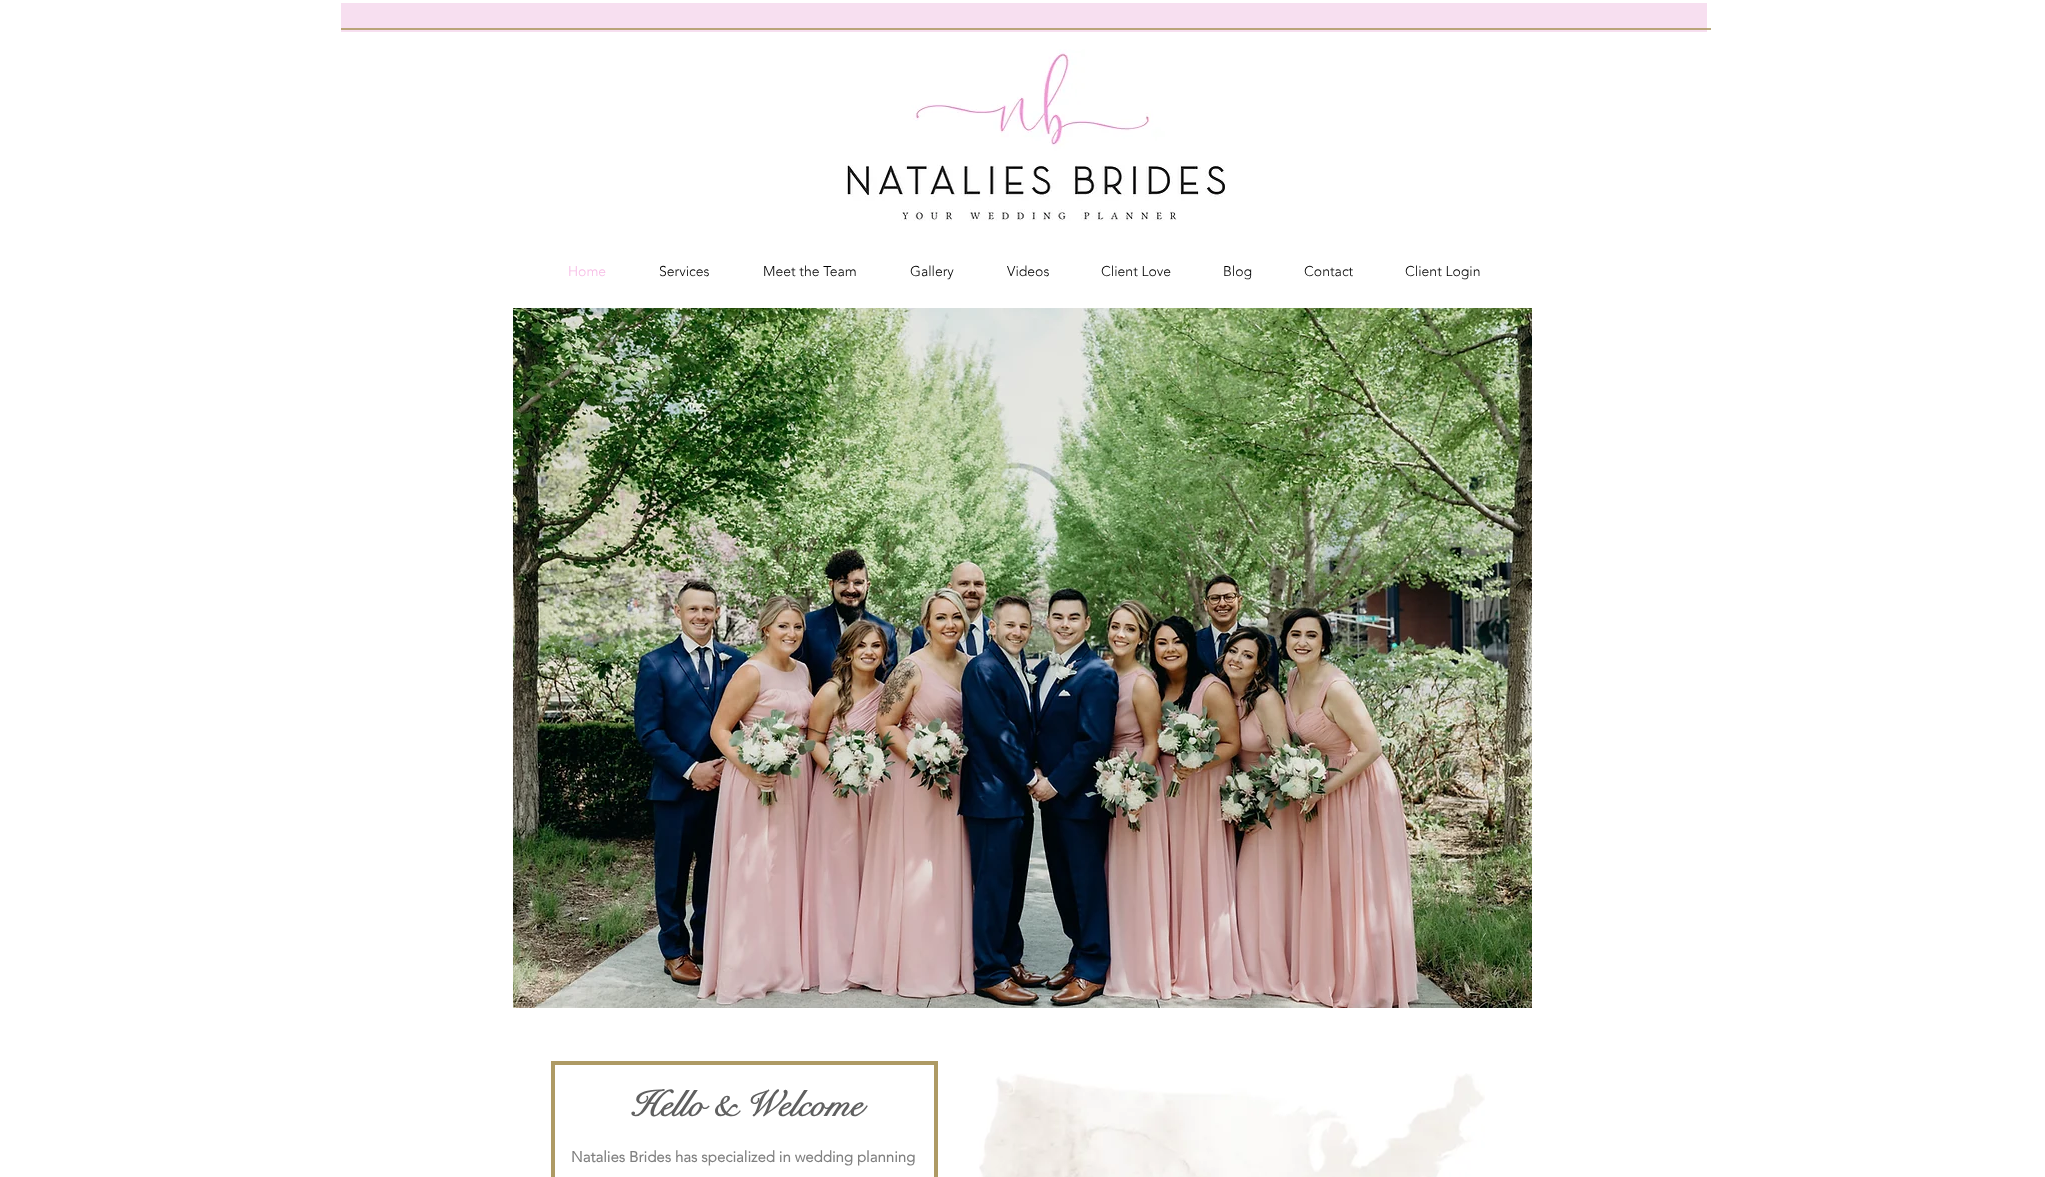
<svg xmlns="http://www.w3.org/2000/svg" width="2045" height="1177">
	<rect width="100%" height="100%" fill="#FFFFFF" />
	<rect x="1707" y="28" width="4" height="2" fill="#BAA97B" />
	<rect x="341" y="3" width="1366" height="29" fill="#F7DFF0" />
	<rect x="341" y="28" width="1366" height="2" fill="#B9A479" />
	<image x="845" y="49" width="380" height="172" href="assets/img1.png" />
	<text x="568" y="276" font-family="'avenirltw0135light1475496'" font-size="14" font-weight="300" fill="#F7BCE6">Home</text>
	<g font-family="'avenirltw0135light1475496'" font-size="14" font-weight="300" fill="#000000">
		<text x="659" y="276">Services</text>
		<text x="763" y="276">Meet the Team</text>
		<text x="910" y="276">Gallery</text>
		<text x="1007" y="276">Videos</text>
		<text x="1101" y="276">Client Love</text>
		<text x="1223" y="276">Blog</text>
		<text x="1304" y="276">Contact</text>
		<text x="1405" y="276">Client Login</text>
	</g>
	<image x="513" y="308" width="1019" height="700" href="assets/img2.png" />
	<path d="M936 1063V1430H553V1063Z" fill="none" stroke="#AE9A64" stroke-width="4" />
	<image x="979" y="1073" width="506" height="104" href="assets/img3.png" />
	<text x="630" y="1116" font-family="'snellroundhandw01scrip'" font-size="36" font-weight="700" fill="#606060">Hello &amp; Welcome</text>
	<text x="571" y="1162" font-family="'avenirltw0135light1475496'" font-size="15" font-weight="700" fill="#808080">Natalies Brides has specialized in wedding planning</text>
</svg>
